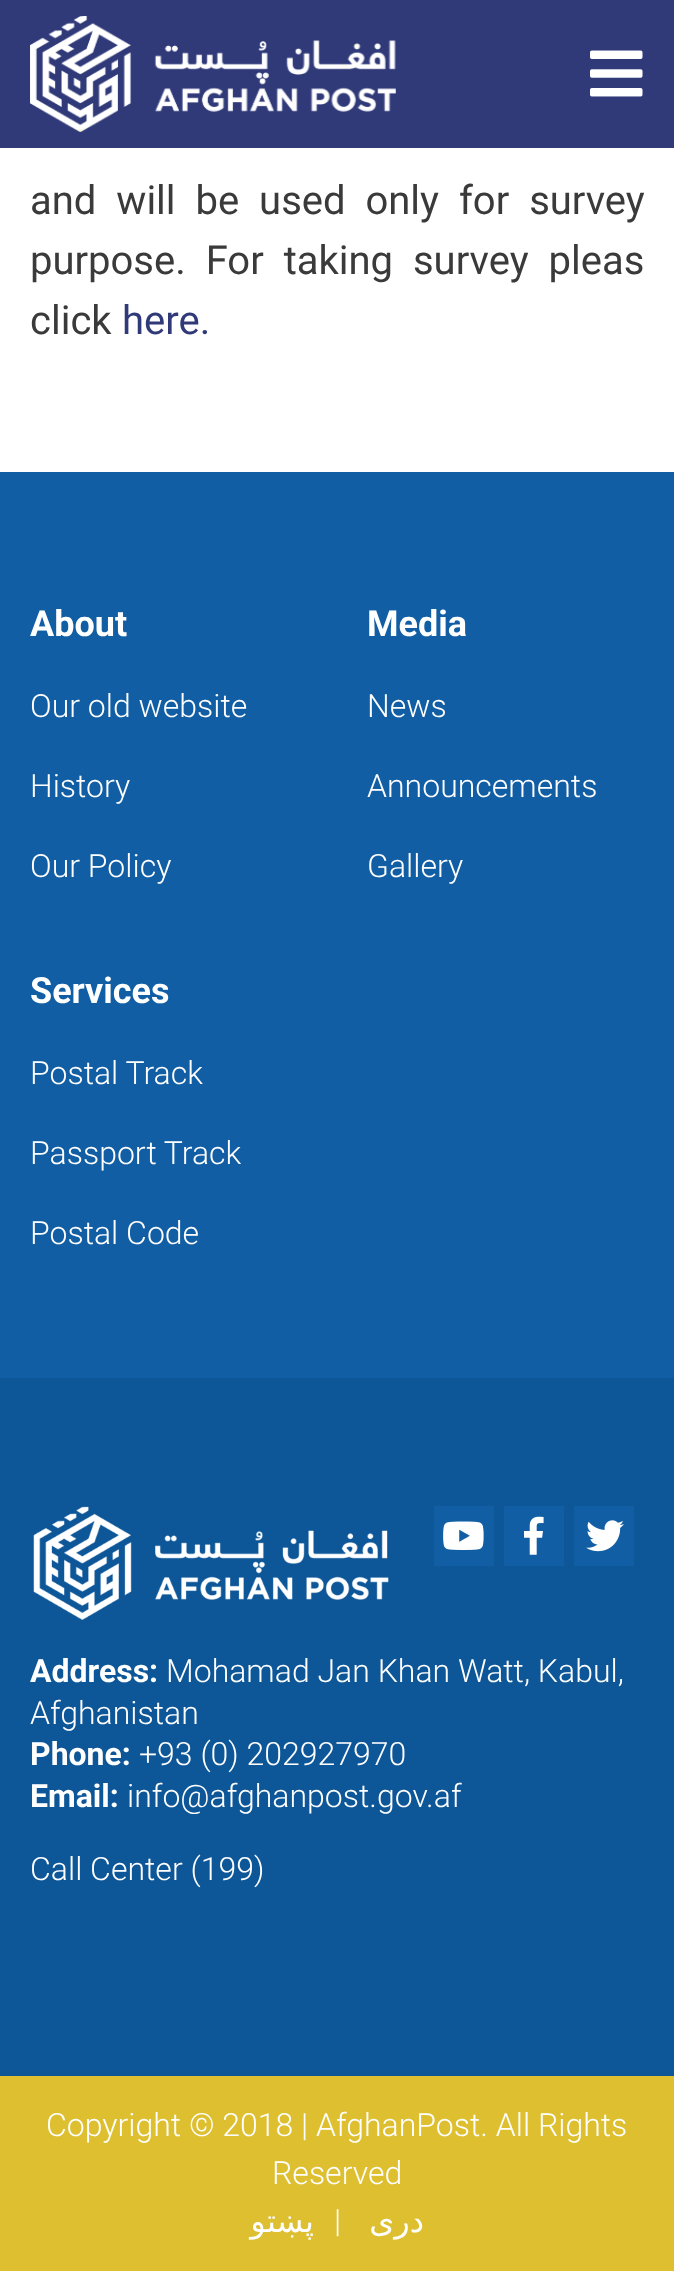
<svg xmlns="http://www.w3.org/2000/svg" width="674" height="2271">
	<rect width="100%" height="100%" fill="#FFFFFF" />
	<rect x="0" y="0" width="674" height="148" fill="#303A79" />
	<image x="30" y="16" width="366" height="116" href="assets/img1.png" />
	<image x="590" y="50" width="53" height="47" href="assets/img2.png" />
	<g font-family="Roboto" font-size="40" fill="#3A3A3A">
		<text x="30" y="214" word-spacing="10">and will be used only for survey</text>
		<text x="30" y="274" word-spacing="10">purpose. For taking survey pleas</text>
		<text x="30" y="334">click</text>
	</g>
	<text x="122" y="334" font-family="Roboto" font-size="40" fill="#303A79">here.</text>
	<rect x="0" y="472" width="674" height="906" fill="#115EA4" />
	<text x="30" y="636" font-family="Roboto" font-size="36" font-weight="700" fill="#FFFFFF">About</text>
	<g font-family="Roboto" font-size="32" font-weight="300" fill="#FFFFFF">
		<text x="30" y="717">Our old website</text>
		<text x="30" y="797">History</text>
		<text x="30" y="877">Our Policy</text>
	</g>
	<text x="367" y="636" font-family="Roboto" font-size="36" font-weight="700" fill="#FFFFFF">Media</text>
	<g font-family="Roboto" font-size="32" font-weight="300" fill="#FFFFFF">
		<text x="367" y="717">News</text>
		<text x="367" y="797">Announcements</text>
		<text x="367" y="877">Gallery</text>
	</g>
	<text x="30" y="1003" font-family="Roboto" font-size="36" font-weight="700" fill="#FFFFFF">Services</text>
	<g font-family="Roboto" font-size="32" font-weight="300" fill="#FFFFFF">
		<text x="30" y="1084">Postal Track</text>
		<text x="30" y="1164">Passport Track</text>
		<text x="30" y="1244">Postal Code</text>
	</g>
	<rect x="0" y="1378" width="674" height="698" fill="#0D5698" />
	<image x="33" y="1506" width="356" height="114" href="assets/img3.png" />
	<rect x="434" y="1506" width="60" height="60" fill="#115EA4" />
	<image x="443" y="1521" width="41" height="29" href="assets/img4.png" />
	<rect x="504" y="1506" width="60" height="60" fill="#115EA4" />
	<image x="524" y="1516" width="20" height="39" href="assets/img5.png" />
	<rect x="574" y="1506" width="60" height="60" fill="#115EA4" />
	<image x="586" y="1520" width="38" height="32" href="assets/img6.png" />
	<text x="30" y="1682" font-family="Roboto" font-size="32" font-weight="700" fill="#FFFFFF">Address:</text>
	<g font-family="Roboto" font-size="32" font-weight="300" fill="#FFFFFF">
		<text x="166" y="1682">Mohamad Jan Khan Watt, Kabul,</text>
		<text x="30" y="1724">Afghanistan</text>
	</g>
	<text x="30" y="1765" font-family="Roboto" font-size="32" font-weight="700" fill="#FFFFFF">Phone:</text>
	<text x="139" y="1765" font-family="Roboto" font-size="32" font-weight="300" fill="#FFFFFF">+93 (0) 202927970</text>
	<text x="30" y="1807" font-family="Roboto" font-size="32" font-weight="700" fill="#FFFFFF">Email:</text>
	<g font-family="Roboto" font-size="32" font-weight="300" fill="#FFFFFF">
		<text x="127" y="1807">info@afghanpost.gov.af</text>
		<text x="30" y="1880">Call Center (199)</text>
	</g>
	<rect x="0" y="2076" width="674" height="195" fill="#DDBF30" />
	<g font-family="Roboto" font-size="32" font-weight="300" fill="#FFFFFF">
		<text x="46" y="2136">Copyright © 2018 | AfghanPost. All Rights</text>
		<text x="272" y="2184">Reserved</text>
	</g>
	<text x="314" y="2232" font-family="DejaVu Sans" font-size="32" direction="rtl" fill="#FFFFFF">پښتو</text>
	<text x="334" y="2232" font-family="Roboto" font-size="32" font-weight="300" fill="#FFFFFF">|</text>
	<text x="424" y="2232" font-family="DejaVu Sans" font-size="32" direction="rtl" fill="#FFFFFF">دری</text>
</svg>
